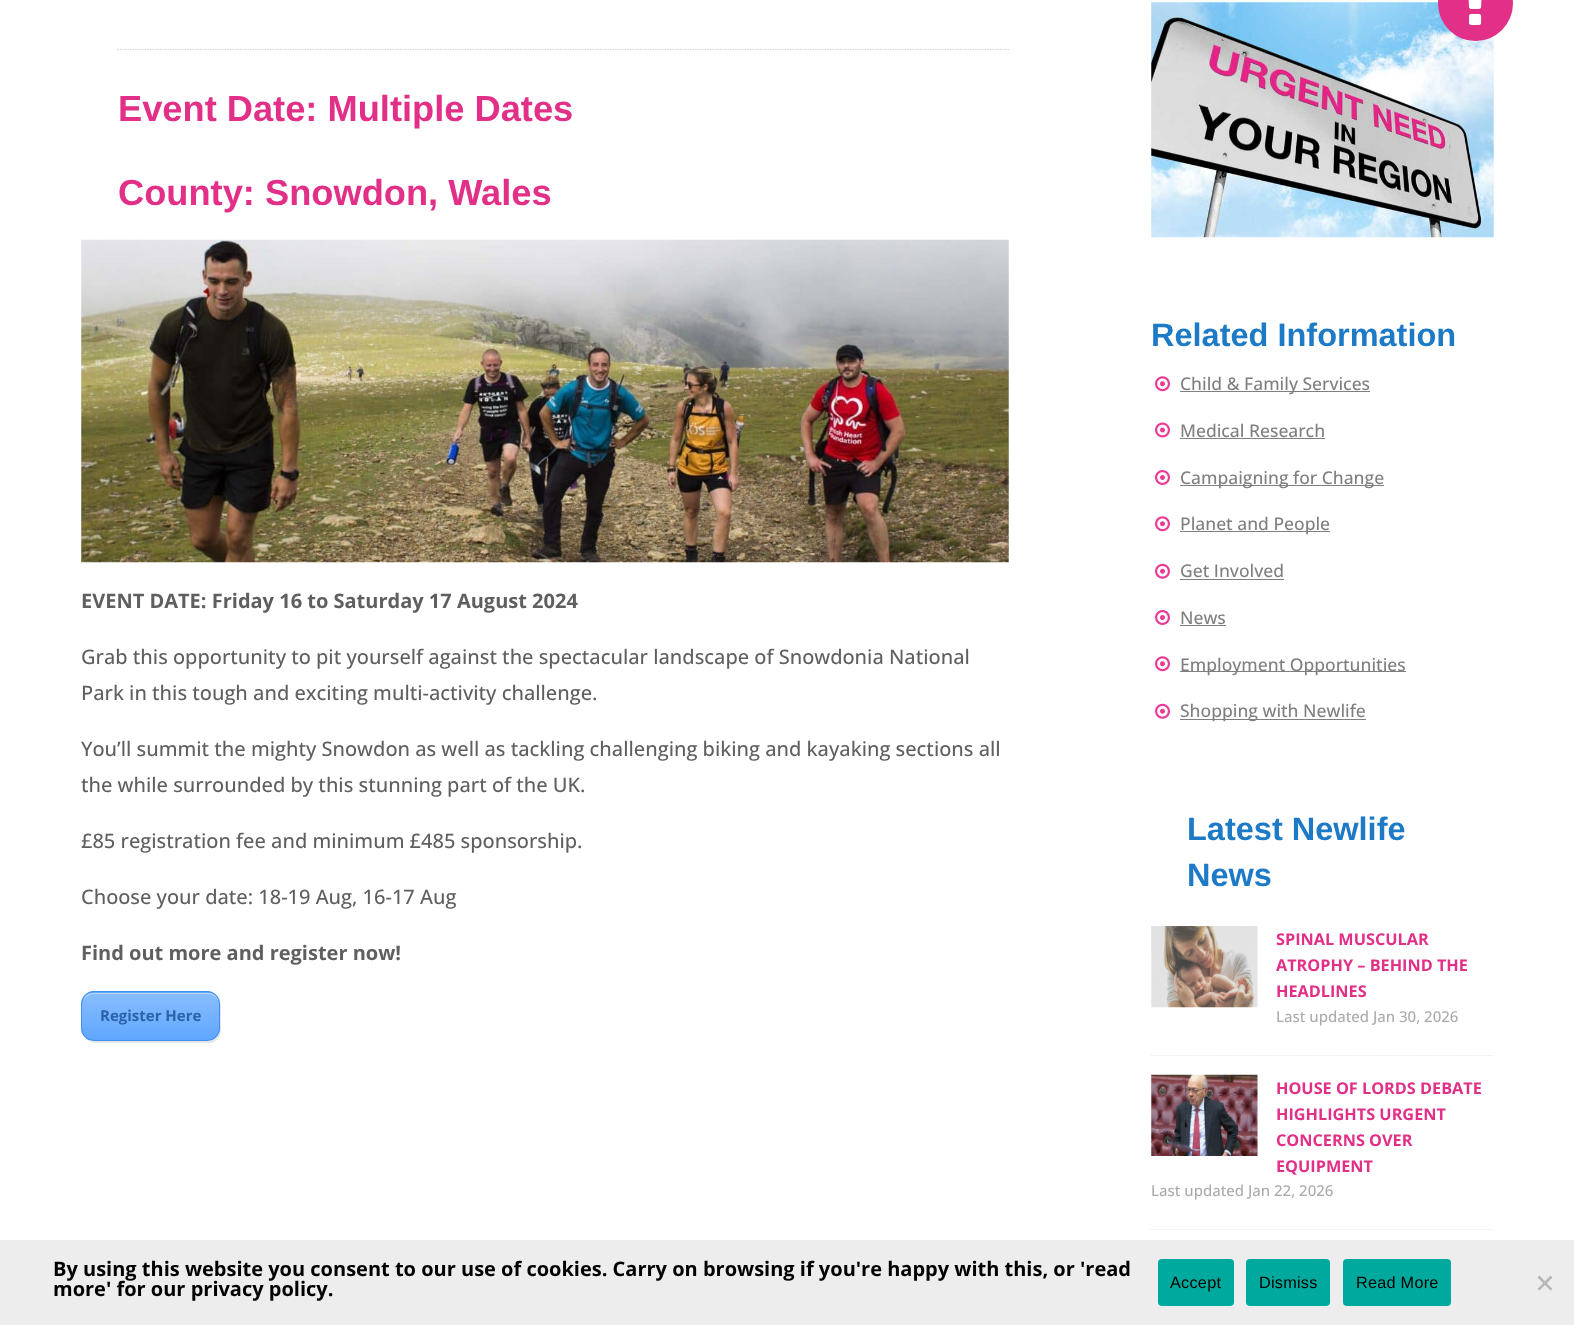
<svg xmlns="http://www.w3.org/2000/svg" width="1574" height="1325">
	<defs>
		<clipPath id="clip1"><rect x="81" y="991" width="139" height="50" rx="13" /></clipPath>
		<linearGradient id="g1" gradientUnits="userSpaceOnUse" x1="151" y1="945" x2="151" y2="993"><stop offset="0" stop-color="#88BDFF" /><stop offset="1" stop-color="#60A7FF" /></linearGradient>
		<linearGradient id="g2" gradientUnits="userSpaceOnUse" x1="151" y1="993" x2="151" y2="1040"><stop offset="0" stop-color="#88BDFF" /><stop offset="1" stop-color="#60A7FF" /></linearGradient>
	</defs>
	<rect width="100%" height="100%" fill="#FFFFFF" />
	<path d="M117.5 49.5H1009" fill="none" stroke="#CCCCCC" stroke-width="1.2" stroke-dasharray="1.25 1.25" />
	<g font-family="Liberation Sans" font-size="36.25" font-weight="700" fill="#E22F87">
		<text x="118" y="121">Event Date: Multiple Dates</text>
		<text x="118" y="205">County: Snowdon, Wales</text>
	</g>
	<image x="81" y="239" width="928" height="324" href="assets/img1.png" />
	<text x="81" y="608" font-family="Open Sans" font-size="20" font-weight="700" fill="#5F5F5F">EVENT DATE: Friday 16 to Saturday 17 August 2024</text>
	<g font-family="Open Sans" font-size="20" font-weight="500" fill="#5F5F5F">
		<text x="81" y="664">Grab this opportunity to pit yourself against the spectacular landscape of Snowdonia National</text>
		<text x="81" y="700">Park in this tough and exciting multi-activity challenge.</text>
		<text x="81" y="756">You’ll summit the mighty Snowdon as well as tackling challenging biking and kayaking sections all</text>
		<text x="81" y="792">the while surrounded by this stunning part of the UK.</text>
		<text x="81" y="848">£85 registration fee and minimum £485 sponsorship.</text>
		<text x="81" y="904">Choose your date: 18-19 Aug, 16-17 Aug</text>
	</g>
	<text x="81" y="960" font-family="Open Sans" font-size="20" font-weight="700" fill="#5F5F5F">Find out more and register now!</text>
	<rect x="83" y="993" width="138" height="50" rx="13" fill="#000000" fill-opacity="0.1" filter="blur(0.5px)" />
	<g clip-path="url(#clip1)">
		<rect x="81" y="991" width="139" height="2" fill="url(#g1)" />
		<rect x="81" y="993" width="139" height="47" fill="url(#g2)" />
	</g>
	<path d="M94 994H208C214 994 219 999 219 1005V1004C219 998 214 993 208 993H94C90 993 86 995 84 999C87 996 90 994 94 994Z" fill="#FFFFFF" fill-opacity="0.4" />
	<rect x="81.5" y="991.5" width="138" height="49" rx="12.5" fill="none" stroke="#3E8FF4" />
	<text x="100" y="1021" font-family="Open Sans" font-size="15" font-weight="700" fill="#2B63A8">Register Here</text>
	<image x="1151" y="2" width="343" height="236" href="assets/img3.png" />
	<circle cx="1475.5" cy="3.5" r="37.5" fill="#E22F87" />
	<image x="1468" y="0" width="14" height="25" href="assets/img2.png" />
	<text x="1151" y="346" font-family="Liberation Sans" font-size="32.5" font-weight="700" fill="#1D7AC7">Related Information</text>
	<image x="1155" y="376" width="15" height="16" href="assets/img4.png" />
	<rect x="1180" y="391" width="190" height="1" fill="#7F7F7F" />
	<text x="1180" y="390" font-family="Open Sans" font-size="17.5" font-weight="500" fill="#7F7F7F">Child &amp; Family Services</text>
	<image x="1155" y="422" width="15" height="16" href="assets/img5.png" />
	<text x="1180" y="437" font-family="Open Sans" font-size="17.5" font-weight="500" fill="#7F7F7F">Medical Research</text>
	<rect x="1180" y="438" width="145" height="1" fill="#7F7F7F" />
	<image x="1155" y="470" width="15" height="15" href="assets/img6.png" />
	<rect x="1180" y="485" width="204" height="1" fill="#7F7F7F" />
	<text x="1180" y="484" font-family="Open Sans" font-size="17.5" font-weight="500" fill="#7F7F7F">Campaigning for Change</text>
	<image x="1155" y="516" width="15" height="16" href="assets/img4.png" />
	<rect x="1180" y="531" width="150" height="1" fill="#7F7F7F" />
	<text x="1180" y="530" font-family="Open Sans" font-size="17.5" font-weight="500" fill="#7F7F7F">Planet and People</text>
	<image x="1155" y="563" width="15" height="16" href="assets/img7.png" />
	<text x="1180" y="577" font-family="Open Sans" font-size="17.5" font-weight="500" fill="#7F7F7F">Get Involved</text>
	<rect x="1180" y="579" width="104" height="1" fill="#7F7F7F" />
	<image x="1155" y="610" width="15" height="15" href="assets/img6.png" />
	<text x="1180" y="624" font-family="Open Sans" font-size="17.5" font-weight="500" fill="#7F7F7F">News</text>
	<rect x="1180" y="625" width="46" height="1" fill="#7F7F7F" />
	<image x="1155" y="656" width="15" height="16" href="assets/img4.png" />
	<rect x="1180" y="671" width="226" height="1" fill="#7F7F7F" />
	<text x="1180" y="671" font-family="Open Sans" font-size="17.5" font-weight="500" fill="#7F7F7F">Employment Opportunities</text>
	<image x="1155" y="703" width="15" height="16" href="assets/img7.png" />
	<rect x="1180" y="719" width="186" height="1" fill="#7F7F7F" />
	<text x="1180" y="717" font-family="Open Sans" font-size="17.5" font-weight="500" fill="#7F7F7F">Shopping with Newlife</text>
	<g font-family="Liberation Sans" font-size="32.5" font-weight="700" fill="#1D7AC7">
		<text x="1187" y="840">Latest Newlife</text>
		<text x="1187" y="886">News</text>
	</g>
	<path d="M1151 1055.5H1494" fill="none" stroke="#EAEAEA" stroke-width="1.2" stroke-dasharray="1.25 1.25" />
	<image x="1151" y="926" width="107" height="82" href="assets/img8.png" />
	<g font-family="Open Sans" font-size="16.25" font-weight="700" fill="#E22F87">
		<text x="1276" y="945">SPINAL MUSCULAR</text>
		<text x="1276" y="971">ATROPHY – BEHIND THE</text>
		<text x="1276" y="997">HEADLINES</text>
	</g>
	<text x="1276" y="1022" font-family="Open Sans" font-size="15" font-weight="500" fill="#AAAAAA">Last updated Jan 30, 2026</text>
	<path d="M1151 1229.5H1494" fill="none" stroke="#EAEAEA" stroke-width="1.2" stroke-dasharray="1.25 1.25" />
	<image x="1151" y="1074" width="107" height="82" href="assets/img9.png" />
	<g font-family="Open Sans" font-size="16.25" font-weight="700" fill="#E22F87">
		<text x="1276" y="1094">HOUSE OF LORDS DEBATE</text>
		<text x="1276" y="1120">HIGHLIGHTS URGENT</text>
		<text x="1276" y="1146">CONCERNS OVER</text>
		<text x="1276" y="1172">EQUIPMENT</text>
	</g>
	<text x="1151" y="1196" font-family="Open Sans" font-size="15" font-weight="500" fill="#AAAAAA">Last updated Jan 22, 2026</text>
	<rect x="0" y="1240" width="1574" height="85" fill="#EDEDED" />
	<g font-family="Open Sans" font-size="20" font-weight="700" fill="#000000">
		<text x="53" y="1276">By using this website you consent to our use of cookies. Carry on browsing if you're happy with this, or 'read</text>
		<text x="53" y="1296">more' for our privacy policy.</text>
	</g>
	<rect x="1158" y="1259" width="76" height="47" rx="4" fill="#00A99D" />
	<text x="1170" y="1288" font-family="Liberation Sans" font-size="16.25" letter-spacing="0.25" fill="#000000">Accept</text>
	<rect x="1246" y="1259" width="84" height="47" rx="4" fill="#00A99D" />
	<text x="1259" y="1288" font-family="Liberation Sans" font-size="16.25" letter-spacing="0.25" fill="#000000">Dismiss</text>
	<rect x="1343" y="1259" width="108" height="47" rx="4" fill="#00A99D" />
	<text x="1356" y="1288" font-family="Liberation Sans" font-size="16.25" letter-spacing="0.25" fill="#000000">Read More</text>
	<path d="M1550.5 1275.5L1552.5 1277.5L1539.5 1290.5L1537.5 1289Z" fill="#B7B7B7" />
	<path d="M1537.5 1277.5L1539.5 1275.5L1552.5 1289L1550.5 1290.5Z" fill="#B7B7B7" />
</svg>
